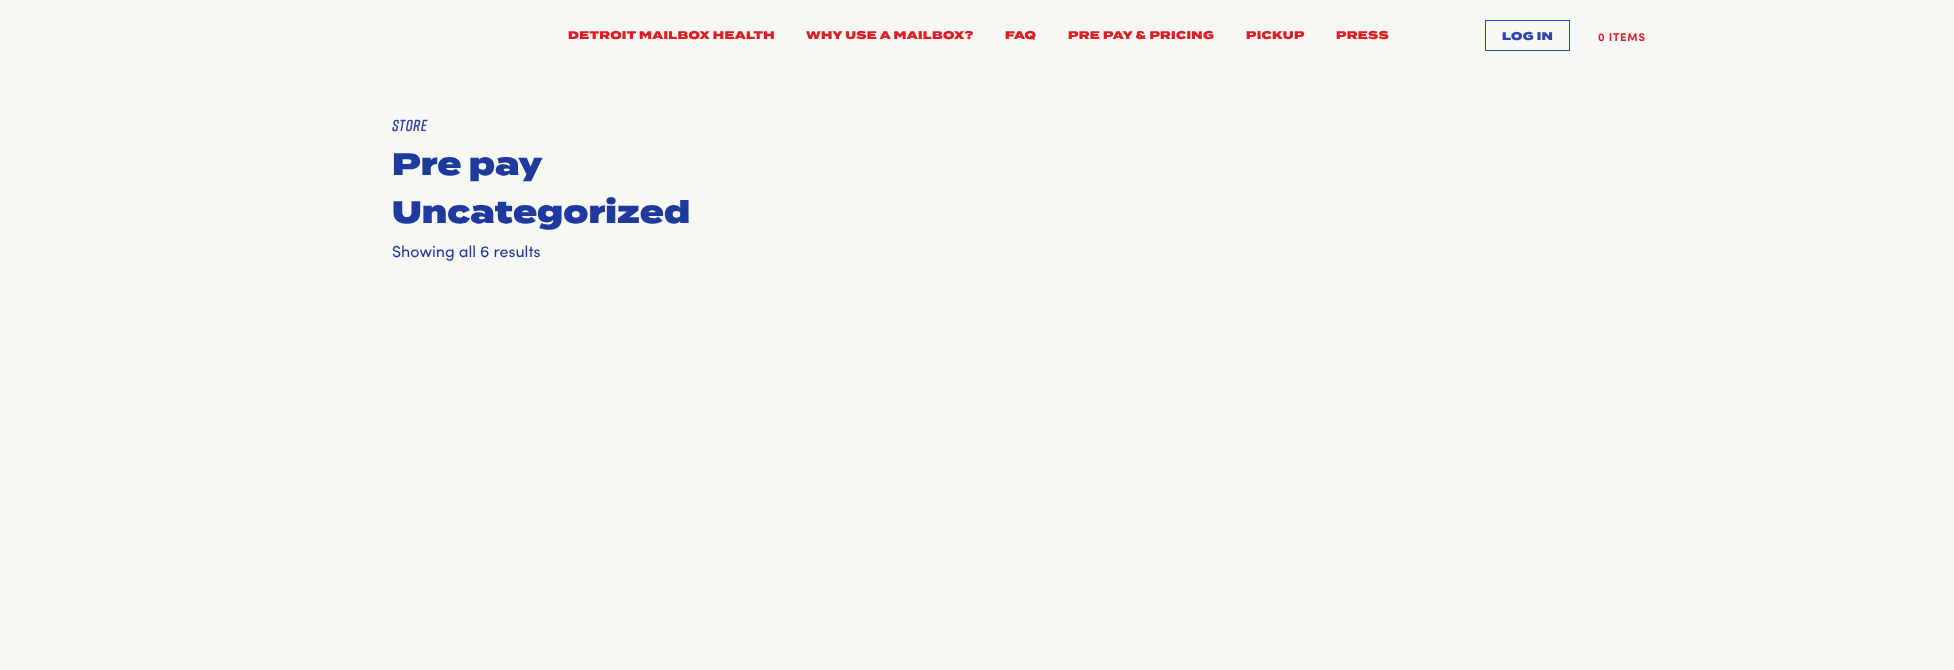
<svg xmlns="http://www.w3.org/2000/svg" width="1954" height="670">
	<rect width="100%" height="100%" fill="#F7F8F3" />
	<g font-family="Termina" font-size="11.25" font-weight="900" letter-spacing="0.3" fill="#DD1E26">
		<text x="568" y="39">DETROIT MAILBOX HEALTH</text>
		<text x="806" y="39">WHY USE A MAILBOX?</text>
		<text x="1005" y="39">FAQ</text>
		<text x="1068" y="39">PRE PAY &amp; PRICING</text>
		<text x="1246" y="39">PICKUP</text>
		<text x="1336" y="39">PRESS</text>
	</g>
	<rect x="1485.5" y="20.5" width="84" height="30" fill="none" stroke="#2F45AF" />
	<text x="1502" y="40" font-family="Termina" font-size="11.25" font-weight="900" letter-spacing="0.3" fill="#2F45AF">LOG IN</text>
	<text x="1598" y="41" font-family="Sofia" font-size="11.25" font-weight="700" letter-spacing="0.75" fill="#DD1E26">0 ITEMS</text>
	<text x="392" y="131" font-family="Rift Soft" font-size="16" font-weight="600" font-style="italic" letter-spacing="0.5" fill="#2F45AF">STORE</text>
	<g font-family="Termina" font-size="31" font-weight="900" fill="#1E3A9E">
		<text x="392" y="175">Pre pay</text>
		<text x="392" y="223">Uncategorized</text>
	</g>
	<text x="392" y="257" font-family="Sofia" font-size="16" fill="#1E3A9E">Showing all 6 results</text>
</svg>
